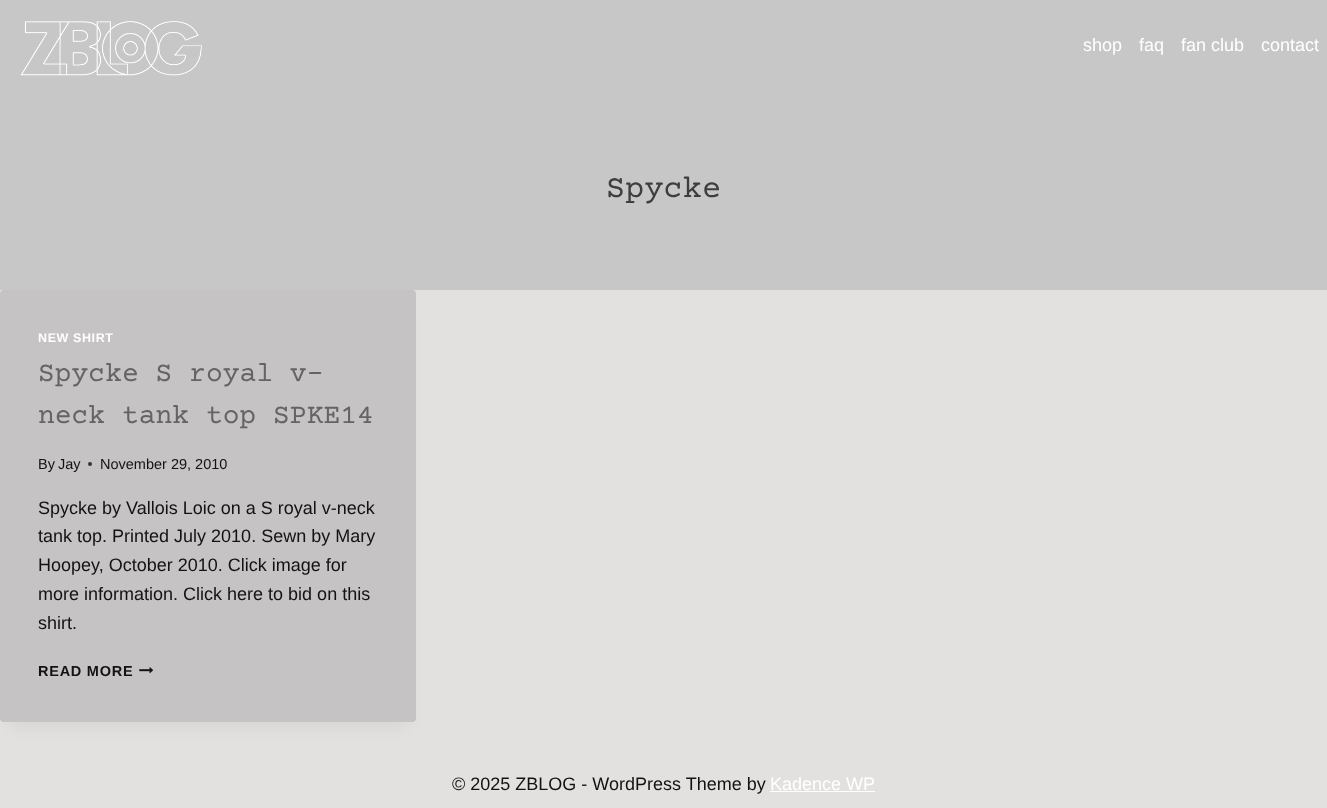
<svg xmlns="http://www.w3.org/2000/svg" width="1327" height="808">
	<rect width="100%" height="100%" fill="#E3E0E0" />
	<rect x="0" y="0" width="1327" height="290" fill="#C7C7C7" />
	<image x="20" y="21" width="182" height="55" href="assets/img1.png" />
	<g font-family="Liberation Sans" font-size="18" fill="#FFFFFF">
		<text x="1083" y="51">shop</text>
		<text x="1139" y="51">faq</text>
		<text x="1181" y="51">fan club</text>
		<text x="1261" y="51">contact</text>
	</g>
	<text x="606" y="197" font-family="Courier Prime" font-size="32" fill="#3E3E3E">Spycke</text>
	<rect x="10" y="315" width="396" height="412" fill="#000000" fill-opacity="0.05" filter="blur(7.5px)" />
	<rect x="0" y="290" width="416" height="432" rx="4" fill="#C5C3C3" />
	<text x="38" y="342" font-family="Liberation Sans" font-size="12.5" font-weight="700" letter-spacing="0.6" fill="#FFFFFF">NEW SHIRT</text>
	<g font-family="Courier Prime" font-size="28" fill="#646464">
		<text x="38" y="381">Spycke S royal v-</text>
		<text x="38" y="423">neck tank top SPKE14</text>
	</g>
	<g font-family="Liberation Sans" font-size="14.5" fill="#131313">
		<text x="38" y="469">By</text>
		<text x="58" y="469">Jay</text>
	</g>
	<circle cx="90" cy="464" r="2" fill="#373636" />
	<text x="100" y="469" font-family="Liberation Sans" font-size="14.5" fill="#131313">November 29, 2010</text>
	<g font-family="Liberation Sans" font-size="18" fill="#131313">
		<text x="38" y="514">Spycke by Vallois Loic on a S royal v-neck</text>
		<text x="38" y="542">tank top. Printed July 2010. Sewn by Mary</text>
		<text x="38" y="571">Hoopey, October 2010. Click image for</text>
		<text x="38" y="600">more information. Click here to bid on this</text>
		<text x="38" y="629">shirt.</text>
	</g>
	<text x="38" y="676" font-family="Liberation Sans" font-size="14.5" font-weight="700" letter-spacing="0.75" fill="#131313">READ MORE</text>
	<image x="139" y="667" width="15" height="7" href="assets/img2.png" />
	<text x="452" y="790" font-family="Liberation Sans" font-size="18" fill="#131313">© 2025 ZBLOG - WordPress Theme by</text>
	<text x="770" y="790" font-family="Liberation Sans" font-size="18" fill="#FFFFFF">Kadence WP</text>
	<rect x="770" y="791" width="105" height="1" fill="#FFFFFF" />
</svg>
